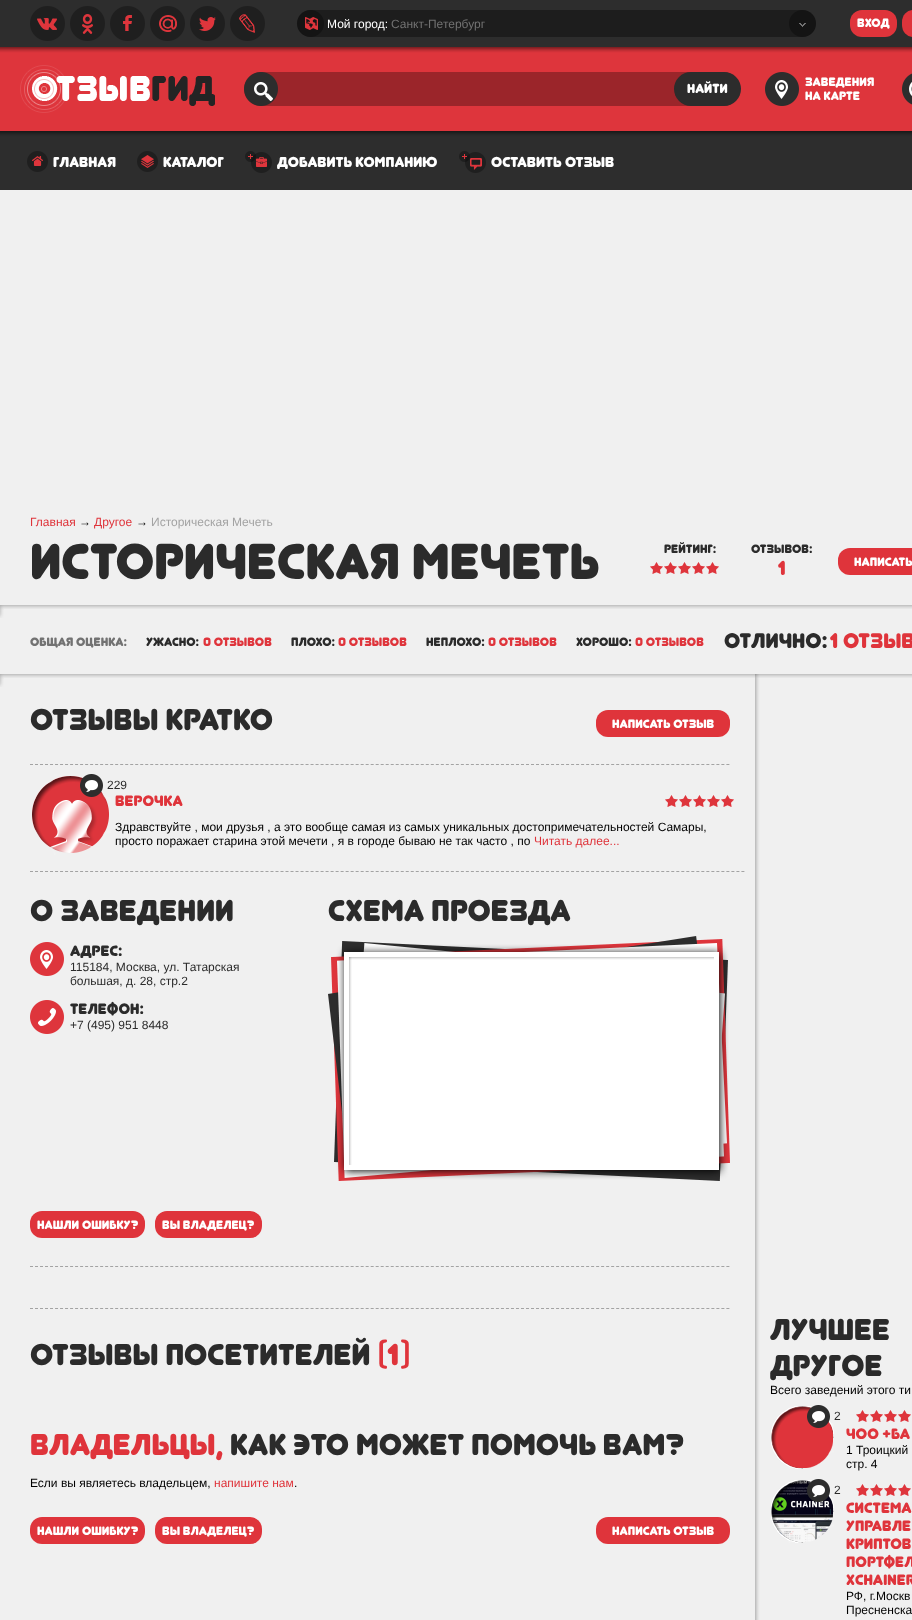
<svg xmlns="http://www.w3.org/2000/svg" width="912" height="1620">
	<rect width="100%" height="100%" fill="#F0F0F0" />
	<image x="0" y="0" width="912" height="190" href="assets/img1.png" />
	<image x="30" y="6" width="35" height="35" href="assets/img2.png" />
	<image x="70" y="6" width="35" height="35" href="assets/img3.png" />
	<image x="110" y="6" width="35" height="35" href="assets/img4.png" />
	<image x="150" y="6" width="35" height="35" href="assets/img5.png" />
	<image x="190" y="6" width="35" height="35" href="assets/img6.png" />
	<image x="230" y="6" width="35" height="35" href="assets/img7.png" />
	<rect x="297" y="10" width="519" height="27" rx="13.5" fill="#1D1D1D" />
	<image x="297" y="10" width="27" height="27" href="assets/img8.png" />
	<text x="327" y="28" font-family="Liberation Sans" font-size="12" fill="#FFFFFF">Мой город:</text>
	<text x="391" y="28" font-family="Liberation Sans" font-size="12" fill="#727272">Санкт-Петербург</text>
	<image x="789" y="10" width="27" height="27" href="assets/img9.png" />
	<rect x="850" y="10" width="47" height="27" rx="12" fill="#DF343B" />
	<text x="857" y="27" font-family="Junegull" font-size="12" fill="#FFFFFF">вход</text>
	<rect x="902" y="10" width="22" height="27" rx="12" fill="#DF343B" />
	<image x="20" y="65" width="195" height="48" href="assets/img10.png" />
	<rect x="244" y="72" width="496" height="34" rx="17" fill="#9B252A" />
	<image x="244" y="72" width="34" height="34" href="assets/img11.png" />
	<rect x="674" y="72" width="67" height="34" rx="17" fill="#2C2C2C" />
	<text x="687" y="93" font-family="Junegull" font-size="13" fill="#FFFFFF">найти</text>
	<image x="765" y="72" width="34" height="34" href="assets/img12.png" />
	<g font-family="Junegull" font-size="12" fill="#FFFFFF">
		<text x="805" y="86">заведения</text>
		<text x="805" y="100">на карте</text>
	</g>
	<image x="902" y="73" width="10" height="32" href="assets/img13.png" />
	<image x="27" y="151" width="21" height="21" href="assets/img14.png" />
	<text x="53" y="167" font-family="Junegull" font-size="14.4" fill="#FFFFFF">главная</text>
	<image x="137" y="151" width="21" height="21" href="assets/img15.png" />
	<text x="163" y="167" font-family="Junegull" font-size="14.4" fill="#FFFFFF">каталог</text>
	<image x="245" y="151" width="27" height="22" href="assets/img16.png" />
	<text x="277" y="167" font-family="Junegull" font-size="14.4" fill="#FFFFFF">добавить компанию</text>
	<image x="459" y="151" width="27" height="22" href="assets/img17.png" />
	<text x="491" y="167" font-family="Junegull" font-size="14.4" fill="#FFFFFF">оставить отзыв</text>
	<text x="30" y="526" font-family="Liberation Sans" font-size="12" fill="#DF343B">Главная</text>
	<text x="79" y="526" font-family="Liberation Sans" font-size="12" fill="#000000">→</text>
	<text x="94" y="526" font-family="Liberation Sans" font-size="12" fill="#DF343B">Другое</text>
	<text x="136" y="526" font-family="Liberation Sans" font-size="12" fill="#000000">→</text>
	<text x="151" y="526" font-family="Liberation Sans" font-size="12" fill="#A3A3A3">Историческая Мечеть</text>
	<text x="30" y="579" font-family="Junegull" font-size="50" fill="#2B2B2B">Историческая Мечеть</text>
	<text x="664" y="553" font-family="Junegull" font-size="12" fill="#2B2B2B">рейтинг:</text>
	<image x="650" y="562" width="69" height="12" href="assets/img18.png" />
	<image x="650" y="562" width="69" height="12" href="assets/img19.png" />
	<text x="751" y="553" font-family="Junegull" font-size="12" fill="#2B2B2B">отзывов:</text>
	<text x="778" y="575" font-family="Junegull" font-size="20" fill="#DF343B">1</text>
	<rect x="838" y="548" width="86" height="27" rx="12" fill="#DF343B" />
	<text x="854" y="566" font-family="Junegull" font-size="12" fill="#FFFFFF">написать</text>
	<image x="0" y="605" width="4" height="13" href="assets/img20.png" />
	<image x="4" y="605" width="908" height="4" href="assets/img21.png" />
	<text x="30" y="646" font-family="Junegull" font-size="12" fill="#727272">общая оценка:</text>
	<text x="146" y="646" font-family="Junegull" font-size="12" fill="#2B2B2B">ужасно:</text>
	<text x="203" y="646" font-family="Junegull" font-size="12" fill="#DF343B">0 отзывов</text>
	<text x="291" y="646" font-family="Junegull" font-size="12" fill="#2B2B2B">плохо:</text>
	<text x="338" y="646" font-family="Junegull" font-size="12" fill="#DF343B">0 отзывов</text>
	<text x="426" y="646" font-family="Junegull" font-size="12" fill="#2B2B2B">неплохо:</text>
	<text x="488" y="646" font-family="Junegull" font-size="12" fill="#DF343B">0 отзывов</text>
	<text x="576" y="646" font-family="Junegull" font-size="12" fill="#2B2B2B">хорошо:</text>
	<text x="635" y="646" font-family="Junegull" font-size="12" fill="#DF343B">0 отзывов</text>
	<text x="724" y="648" font-family="Junegull" font-size="21" fill="#2B2B2B">отлично:</text>
	<text x="830" y="648" font-family="Junegull" font-size="21" fill="#DF343B">1 отзыв</text>
	<image x="0" y="674" width="4" height="13" href="assets/img20.png" />
	<image x="4" y="674" width="908" height="4" href="assets/img21.png" />
	<path d="M30 764.5H730" fill="none" stroke="#A3A3A3" stroke-dasharray="3 2.01" />
	<text x="30" y="730" font-family="Junegull" font-size="30" fill="#2B2B2B">отзывы кратко</text>
	<rect x="596" y="710" width="134" height="27" rx="12" fill="#DF343B" />
	<text x="612" y="728" font-family="Junegull" font-size="12" fill="#FFFFFF">написать отзыв</text>
	<path d="M30 871.5H745" fill="none" stroke="#A3A3A3" stroke-dasharray="3 2.01" />
	<image x="32" y="776" width="77" height="77" href="assets/img23.png" />
	<image x="30" y="774" width="81" height="81" href="assets/img22.png" />
	<image x="80" y="774" width="23" height="23" href="assets/img24.png" />
	<text x="107" y="789" font-family="Liberation Sans" font-size="12" fill="#2B2B2B">229</text>
	<text x="115" y="806" font-family="Junegull" font-size="15" fill="#DF343B">Верочка</text>
	<image x="665" y="795" width="69" height="12" href="assets/img18.png" />
	<image x="665" y="795" width="69" height="12" href="assets/img19.png" />
	<g font-family="Liberation Sans" font-size="12" fill="#000000">
		<text x="115" y="831">Здравствуйте , мои друзья , а это вообще самая из самых уникальных достопримечательностей Самары,</text>
		<text x="115" y="845">просто поражает старина этой мечети , я в городе бываю не так часто , по</text>
	</g>
	<text x="534" y="845" font-family="Liberation Sans" font-size="12" fill="#DF343B">Читать далее...</text>
	<path d="M30 1266.5H730" fill="none" stroke="#A3A3A3" stroke-dasharray="3 2.01" />
	<text x="30" y="921" font-family="Junegull" font-size="30" fill="#2B2B2B">о заведении</text>
	<image x="30" y="942" width="34" height="34" href="assets/img25.png" />
	<text x="70" y="956" font-family="Junegull" font-size="15" fill="#2B2B2B">адрес:</text>
	<g font-family="Liberation Sans" font-size="12" fill="#2B2B2B">
		<text x="70" y="971">115184, Москва, ул. Татарская</text>
		<text x="70" y="985">большая, д. 28, стр.2</text>
	</g>
	<image x="30" y="1000" width="34" height="34" href="assets/img26.png" />
	<text x="70" y="1014" font-family="Junegull" font-size="15" fill="#2B2B2B">телефон:</text>
	<text x="70" y="1029" font-family="Liberation Sans" font-size="12" fill="#2B2B2B">+7 (495) 951 8448</text>
	<image x="328" y="936" width="402" height="245" href="assets/img27.png" />
	<text x="328" y="921" font-family="Junegull" font-size="30" fill="#2B2B2B">схема проезда</text>
	<rect x="30" y="1211" width="115" height="27" rx="12" fill="#DF343B" />
	<text x="37" y="1229" font-family="Junegull" font-size="12" fill="#FFFFFF">нашли ошибку?</text>
	<rect x="155" y="1211" width="107" height="27" rx="12" fill="#DF343B" />
	<text x="162" y="1229" font-family="Junegull" font-size="12" fill="#FFFFFF">вы владелец?</text>
	<path d="M30 1308.5H730" fill="none" stroke="#A3A3A3" stroke-dasharray="3 2.01" />
	<text x="30" y="1365" font-family="Junegull" font-size="30" fill="#2B2B2B">отзывы посетителей</text>
	<g font-family="Junegull" font-size="30" fill="#DF343B">
		<text x="377" y="1365">(1)</text>
		<text x="30" y="1455">Владельцы,</text>
	</g>
	<text x="230" y="1455" font-family="Junegull" font-size="30" fill="#2B2B2B">как это может помочь вам?</text>
	<text x="30" y="1487" font-family="Liberation Sans" font-size="12" fill="#000000">Если вы являетесь владельцем,</text>
	<text x="214" y="1487" font-family="Liberation Sans" font-size="12" fill="#DF343B">напишите нам</text>
	<text x="294" y="1487" font-family="Liberation Sans" font-size="12" fill="#000000">.</text>
	<rect x="30" y="1517" width="115" height="27" rx="12" fill="#DF343B" />
	<text x="37" y="1535" font-family="Junegull" font-size="12" fill="#FFFFFF">нашли ошибку?</text>
	<rect x="155" y="1517" width="107" height="27" rx="12" fill="#DF343B" />
	<text x="162" y="1535" font-family="Junegull" font-size="12" fill="#FFFFFF">вы владелец?</text>
	<rect x="596" y="1517" width="134" height="27" rx="12" fill="#DF343B" />
	<text x="612" y="1535" font-family="Junegull" font-size="12" fill="#FFFFFF">написать отзыв</text>
	<image x="755" y="678" width="5" height="942" href="assets/img28.png" />
	<image x="755" y="674" width="5" height="4" href="assets/img29.png" />
	<g font-family="Junegull" font-size="30" fill="#2B2B2B">
		<text x="770" y="1340">лучшее</text>
		<text x="770" y="1376">Другое</text>
	</g>
	<text x="770" y="1394" font-family="Liberation Sans" font-size="12" fill="#000000">Всего заведений этого ти</text>
	<rect x="771" y="1406" width="62" height="62" fill="#DF343B" />
	<image x="770" y="1405" width="64" height="64" href="assets/img30.png" />
	<image x="807" y="1405" width="23" height="23" href="assets/img31.png" />
	<text x="834" y="1420" font-family="Liberation Sans" font-size="12" fill="#2B2B2B">2</text>
	<image x="856" y="1410" width="55" height="12" href="assets/img32.png" />
	<image x="856" y="1410" width="55" height="12" href="assets/img33.png" />
	<text x="846" y="1439" font-family="Junegull" font-size="15" fill="#DF343B">ЧОО +Ба</text>
	<g font-family="Liberation Sans" font-size="12" fill="#000000">
		<text x="846" y="1454">1 Троицкий</text>
		<text x="846" y="1468">стр. 4</text>
	</g>
	<image x="771" y="1480" width="62" height="62" href="assets/img35.png" />
	<image x="770" y="1479" width="64" height="64" href="assets/img34.png" />
	<image x="807" y="1479" width="23" height="23" href="assets/img36.png" />
	<text x="834" y="1494" font-family="Liberation Sans" font-size="12" fill="#2B2B2B">2</text>
	<image x="856" y="1484" width="55" height="12" href="assets/img32.png" />
	<image x="856" y="1484" width="55" height="12" href="assets/img33.png" />
	<g font-family="Junegull" font-size="15" fill="#DF343B">
		<text x="846" y="1513">Cистема</text>
		<text x="846" y="1531">управле</text>
		<text x="846" y="1549">криптов</text>
		<text x="846" y="1567">портфел</text>
		<text x="846" y="1585">XChainer</text>
	</g>
	<g font-family="Liberation Sans" font-size="12" fill="#000000">
		<text x="846" y="1600">РФ, г.Москв</text>
		<text x="846" y="1614">Пресненска</text>
	</g>
</svg>
